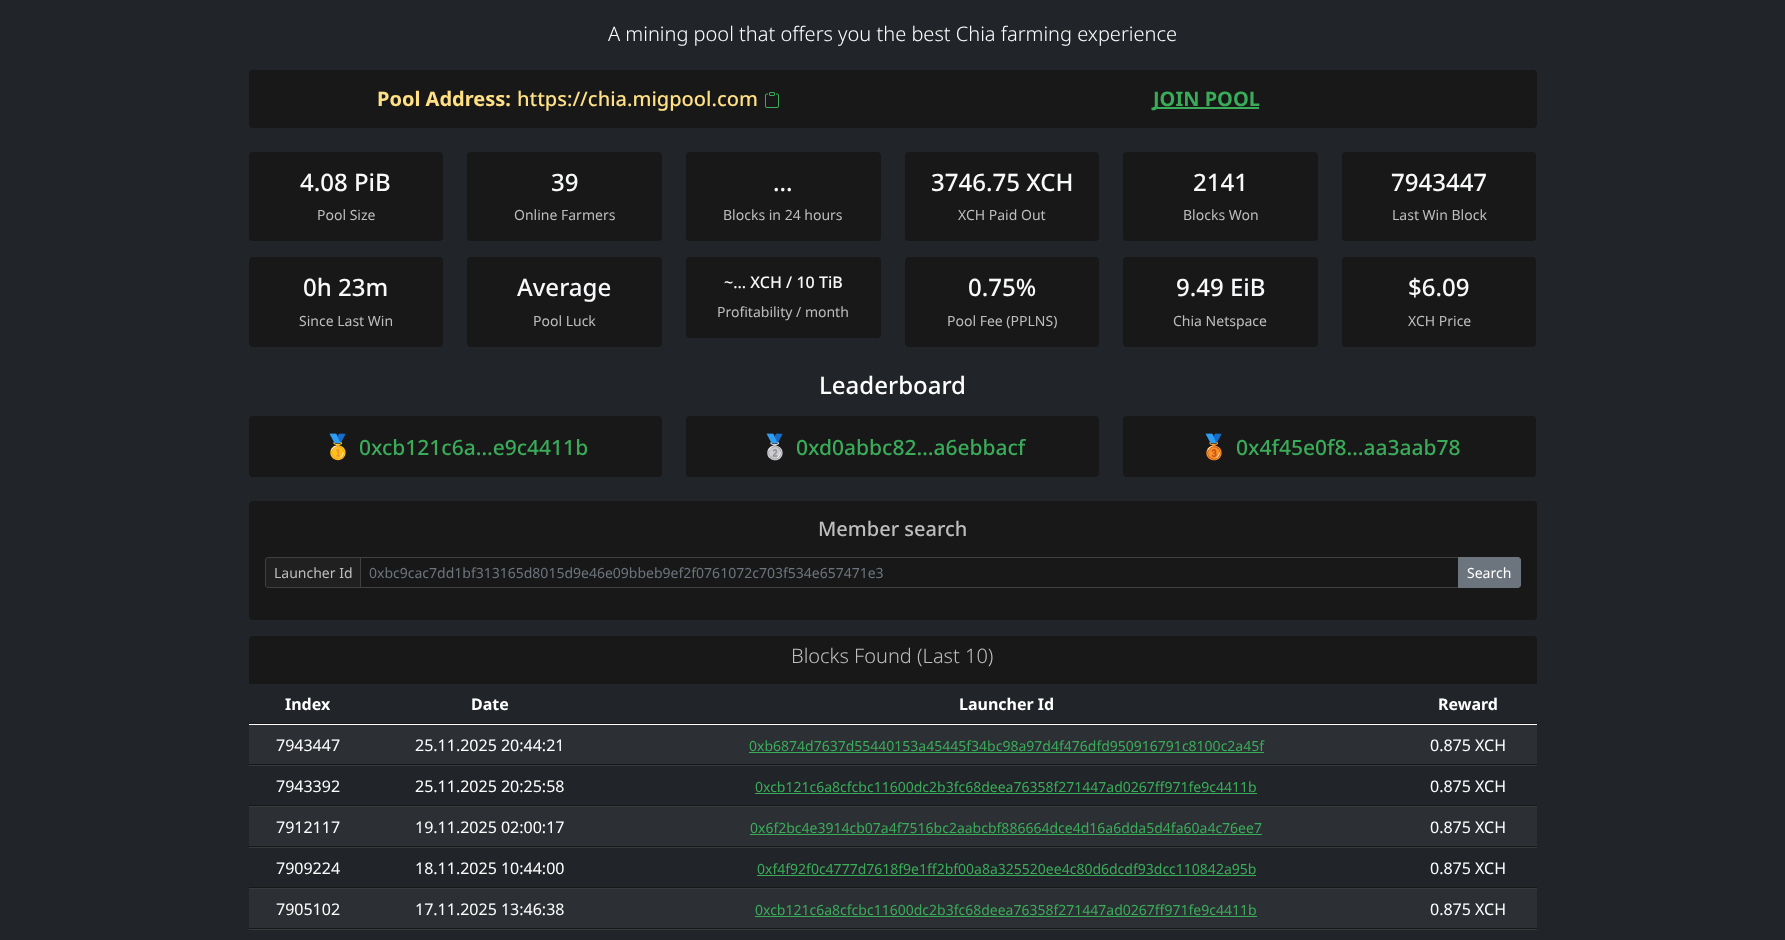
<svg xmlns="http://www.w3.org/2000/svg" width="1785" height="940">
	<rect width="100%" height="100%" fill="#212529" />
	<text x="608" y="41" font-family="Noto Sans" font-size="20" font-weight="300" fill="#FFFFFF">A mining pool that offers you the best Chia farming experience</text>
	<rect x="249" y="70" width="1288" height="58" rx="4" fill="#181818" />
	<text x="377" y="106" font-family="Noto Sans" font-size="20" font-weight="700" fill="#FFE085">Pool Address:</text>
	<text x="517" y="106" font-family="Noto Sans" font-size="20" font-weight="500" fill="#FFE085">https://chia.migpool.com</text>
	<image x="765" y="92" width="14" height="16" href="assets/img1.png" />
	<rect x="1153" y="107" width="106" height="2" fill="#3AAC59" />
	<text x="1153" y="106" font-family="Noto Sans" font-size="20" font-weight="700" fill="#3AAC59">JOIN POOL</text>
	<rect x="249" y="152" width="194" height="89" rx="4" fill="#181818" />
	<text x="300" y="191" font-family="Noto Sans" font-size="24" font-weight="500" fill="#F8F9FA">4.08 PiB</text>
	<text x="317" y="220" font-family="Noto Sans" font-size="14" fill="#BEBEBE">Pool Size</text>
	<rect x="467" y="152" width="195" height="89" rx="4" fill="#181818" />
	<text x="551" y="191" font-family="Noto Sans" font-size="24" font-weight="500" fill="#F8F9FA">39</text>
	<text x="514" y="220" font-family="Noto Sans" font-size="14" fill="#BEBEBE">Online Farmers</text>
	<rect x="686" y="152" width="195" height="89" rx="4" fill="#181818" />
	<text x="773" y="191" font-family="Noto Sans" font-size="24" font-weight="500" fill="#F8F9FA">...</text>
	<text x="723" y="220" font-family="Noto Sans" font-size="14" fill="#BEBEBE">Blocks in 24 hours</text>
	<rect x="905" y="152" width="194" height="89" rx="4" fill="#181818" />
	<text x="931" y="191" font-family="Noto Sans" font-size="24" font-weight="500" fill="#F8F9FA">3746.75 XCH</text>
	<text x="958" y="220" font-family="Noto Sans" font-size="14" fill="#BEBEBE">XCH Paid Out</text>
	<rect x="1123" y="152" width="195" height="89" rx="4" fill="#181818" />
	<text x="1193" y="191" font-family="Noto Sans" font-size="24" font-weight="500" fill="#F8F9FA">2141</text>
	<text x="1183" y="220" font-family="Noto Sans" font-size="14" fill="#BEBEBE">Blocks Won</text>
	<rect x="1342" y="152" width="194" height="89" rx="4" fill="#181818" />
	<text x="1391" y="191" font-family="Noto Sans" font-size="24" font-weight="500" fill="#F8F9FA">7943447</text>
	<text x="1392" y="220" font-family="Noto Sans" font-size="14" fill="#BEBEBE">Last Win Block</text>
	<rect x="249" y="257" width="194" height="90" rx="4" fill="#181818" />
	<text x="303" y="296" font-family="Noto Sans" font-size="24" font-weight="500" fill="#F8F9FA">0h 23m</text>
	<text x="299" y="326" font-family="Noto Sans" font-size="14" fill="#BEBEBE">Since Last Win</text>
	<rect x="467" y="257" width="195" height="90" rx="4" fill="#181818" />
	<text x="517" y="296" font-family="Noto Sans" font-size="24" font-weight="500" fill="#F8F9FA">Average</text>
	<text x="533" y="326" font-family="Noto Sans" font-size="14" fill="#BEBEBE">Pool Luck</text>
	<rect x="686" y="257" width="195" height="81" rx="4" fill="#181818" />
	<text x="724" y="288" font-family="Noto Sans" font-size="16" font-weight="500" fill="#F8F9FA">~... XCH / 10 TiB</text>
	<text x="717" y="317" font-family="Noto Sans" font-size="14" fill="#BEBEBE">Profitability / month</text>
	<rect x="905" y="257" width="194" height="90" rx="4" fill="#181818" />
	<text x="968" y="296" font-family="Noto Sans" font-size="24" font-weight="500" fill="#F8F9FA">0.75%</text>
	<text x="947" y="326" font-family="Noto Sans" font-size="14" fill="#BEBEBE">Pool Fee (PPLNS)</text>
	<rect x="1123" y="257" width="195" height="90" rx="4" fill="#181818" />
	<text x="1176" y="296" font-family="Noto Sans" font-size="24" font-weight="500" fill="#F8F9FA">9.49 EiB</text>
	<text x="1173" y="326" font-family="Noto Sans" font-size="14" fill="#BEBEBE">Chia Netspace</text>
	<rect x="1342" y="257" width="194" height="90" rx="4" fill="#181818" />
	<text x="1408" y="296" font-family="Noto Sans" font-size="24" font-weight="500" fill="#F8F9FA">$6.09</text>
	<text x="1408" y="326" font-family="Noto Sans" font-size="14" fill="#BEBEBE">XCH Price</text>
	<text x="819" y="394" font-family="Noto Sans" font-size="24" font-weight="500" fill="#FFFFFF">Leaderboard</text>
	<rect x="249" y="416" width="413" height="61" rx="4" fill="#181818" />
	<text x="323" y="455" font-family="Noto Color Emoji" font-size="24" fill="#0D6EFD">🥇</text>
	<text x="359" y="455" font-family="Noto Sans" font-size="21" font-weight="500" fill="#3AAC59">0xcb121c6a…e9c4411b</text>
	<rect x="686" y="416" width="413" height="61" rx="4" fill="#181818" />
	<text x="760" y="455" font-family="Noto Color Emoji" font-size="24" fill="#0D6EFD">🥈</text>
	<text x="796" y="455" font-family="Noto Sans" font-size="21" font-weight="500" fill="#3AAC59">0xd0abbc82…a6ebbacf</text>
	<rect x="1123" y="416" width="413" height="61" rx="4" fill="#181818" />
	<text x="1199" y="455" font-family="Noto Color Emoji" font-size="24" fill="#0D6EFD">🥉</text>
	<text x="1236" y="455" font-family="Noto Sans" font-size="21" font-weight="500" fill="#3AAC59">0x4f45e0f8…aa3aab78</text>
	<rect x="249" y="501" width="1288" height="119" rx="4" fill="#181818" />
	<text x="818" y="536" font-family="Noto Sans" font-size="20" font-weight="500" fill="#BEBEBE">Member search</text>
	<path d="M268 557.5H360.5V587.5H268C266.5 587.5 265.5 586.5 265.5 585V560C265.5 558.5 266.5 557.5 268 557.5Z" fill="#202020" stroke="#404040" />
	<text x="274" y="578" font-family="Noto Sans" font-size="14" fill="#BEBEBE">Launcher Id</text>
	<rect x="360.5" y="557.5" width="1098" height="30" fill="none" stroke="#404040" />
	<text x="369" y="578" font-family="Noto Sans" font-size="14" fill="#6C757D">0xbc9cac7dd1bf313165d8015d9e46e09bbeb9ef2f0761072c703f534e657471e3</text>
	<path d="M1458.5 557.5H1518C1519.5 557.5 1520.5 558.5 1520.5 560V585C1520.5 586.5 1519.5 587.5 1518 587.5H1458.5Z" fill="#6C757D" stroke="#6C757D" />
	<text x="1467" y="578" font-family="Noto Sans" font-size="14" fill="#FFFFFF">Search</text>
	<rect x="249" y="636" width="1288" height="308" rx="4" fill="#181818" />
	<text x="791" y="663" font-family="Noto Sans" font-size="20" font-weight="300" fill="#BEBEBE">Blocks Found (Last 10)</text>
	<rect x="249" y="684" width="1288" height="39" fill="#212529" />
	<g font-family="Noto Sans" font-size="16" font-weight="700" fill="#FFFFFF">
		<text x="285" y="710">Index</text>
		<text x="471" y="710">Date</text>
		<text x="959" y="710">Launcher Id</text>
	</g>
	<rect x="249" y="724" width="1288" height="1" fill="#FFFFFF" />
	<text x="1438" y="710" font-family="Noto Sans" font-size="16" font-weight="700" fill="#FFFFFF">Reward</text>
	<rect x="249" y="725" width="1288" height="39" fill="#2C3034" />
	<g font-family="Noto Sans" font-size="16" fill="#FFFFFF">
		<text x="276" y="751">7943447</text>
		<text x="415" y="751">25.11.2025 20:44:21</text>
	</g>
	<text x="749" y="751" font-family="Noto Sans" font-size="14" fill="#3AAC59">0xb6874d7637d55440153a45445f34bc98a97d4f476dfd950916791c8100c2a45f</text>
	<rect x="749" y="752" width="515" height="1" fill="#3AAC59" />
	<rect x="249" y="765" width="1288" height="1" fill="#373B3E" />
	<text x="1430" y="751" font-family="Noto Sans" font-size="16" fill="#FFFFFF">0.875 XCH</text>
	<rect x="249" y="766" width="1288" height="39" fill="#212529" />
	<g font-family="Noto Sans" font-size="16" fill="#FFFFFF">
		<text x="276" y="792">7943392</text>
		<text x="415" y="792">25.11.2025 20:25:58</text>
	</g>
	<text x="755" y="792" font-family="Noto Sans" font-size="14" fill="#3AAC59">0xcb121c6a8cfcbc11600dc2b3fc68deea76358f271447ad0267ff971fe9c4411b</text>
	<rect x="755" y="793" width="502" height="1" fill="#3AAC59" />
	<rect x="249" y="806" width="1288" height="1" fill="#373B3E" />
	<text x="1430" y="792" font-family="Noto Sans" font-size="16" fill="#FFFFFF">0.875 XCH</text>
	<rect x="249" y="807" width="1288" height="39" fill="#2C3034" />
	<g font-family="Noto Sans" font-size="16" fill="#FFFFFF">
		<text x="276" y="833">7912117</text>
		<text x="415" y="833">19.11.2025 02:00:17</text>
	</g>
	<text x="750" y="833" font-family="Noto Sans" font-size="14" fill="#3AAC59">0x6f2bc4e3914cb07a4f7516bc2aabcbf886664dce4d16a6dda5d4fa60a4c76ee7</text>
	<rect x="750" y="834" width="512" height="1" fill="#3AAC59" />
	<rect x="249" y="847" width="1288" height="1" fill="#373B3E" />
	<text x="1430" y="833" font-family="Noto Sans" font-size="16" fill="#FFFFFF">0.875 XCH</text>
	<rect x="249" y="848" width="1288" height="39" fill="#212529" />
	<g font-family="Noto Sans" font-size="16" fill="#FFFFFF">
		<text x="276" y="874">7909224</text>
		<text x="415" y="874">18.11.2025 10:44:00</text>
	</g>
	<text x="757" y="874" font-family="Noto Sans" font-size="14" fill="#3AAC59">0xf4f92f0c4777d7618f9e1ff2bf00a8a325520ee4c80d6dcdf93dcc110842a95b</text>
	<rect x="757" y="875" width="499" height="1" fill="#3AAC59" />
	<rect x="249" y="888" width="1288" height="1" fill="#373B3E" />
	<text x="1430" y="874" font-family="Noto Sans" font-size="16" fill="#FFFFFF">0.875 XCH</text>
	<rect x="249" y="889" width="1288" height="39" fill="#2C3034" />
	<g font-family="Noto Sans" font-size="16" fill="#FFFFFF">
		<text x="276" y="915">7905102</text>
		<text x="415" y="915">17.11.2025 13:46:38</text>
	</g>
	<text x="755" y="915" font-family="Noto Sans" font-size="14" fill="#3AAC59">0xcb121c6a8cfcbc11600dc2b3fc68deea76358f271447ad0267ff971fe9c4411b</text>
	<rect x="755" y="916" width="502" height="1" fill="#3AAC59" />
	<rect x="249" y="929" width="1288" height="1" fill="#373B3E" />
	<text x="1430" y="915" font-family="Noto Sans" font-size="16" fill="#FFFFFF">0.875 XCH</text>
	<rect x="249" y="930" width="1288" height="10" fill="#212529" />
</svg>
